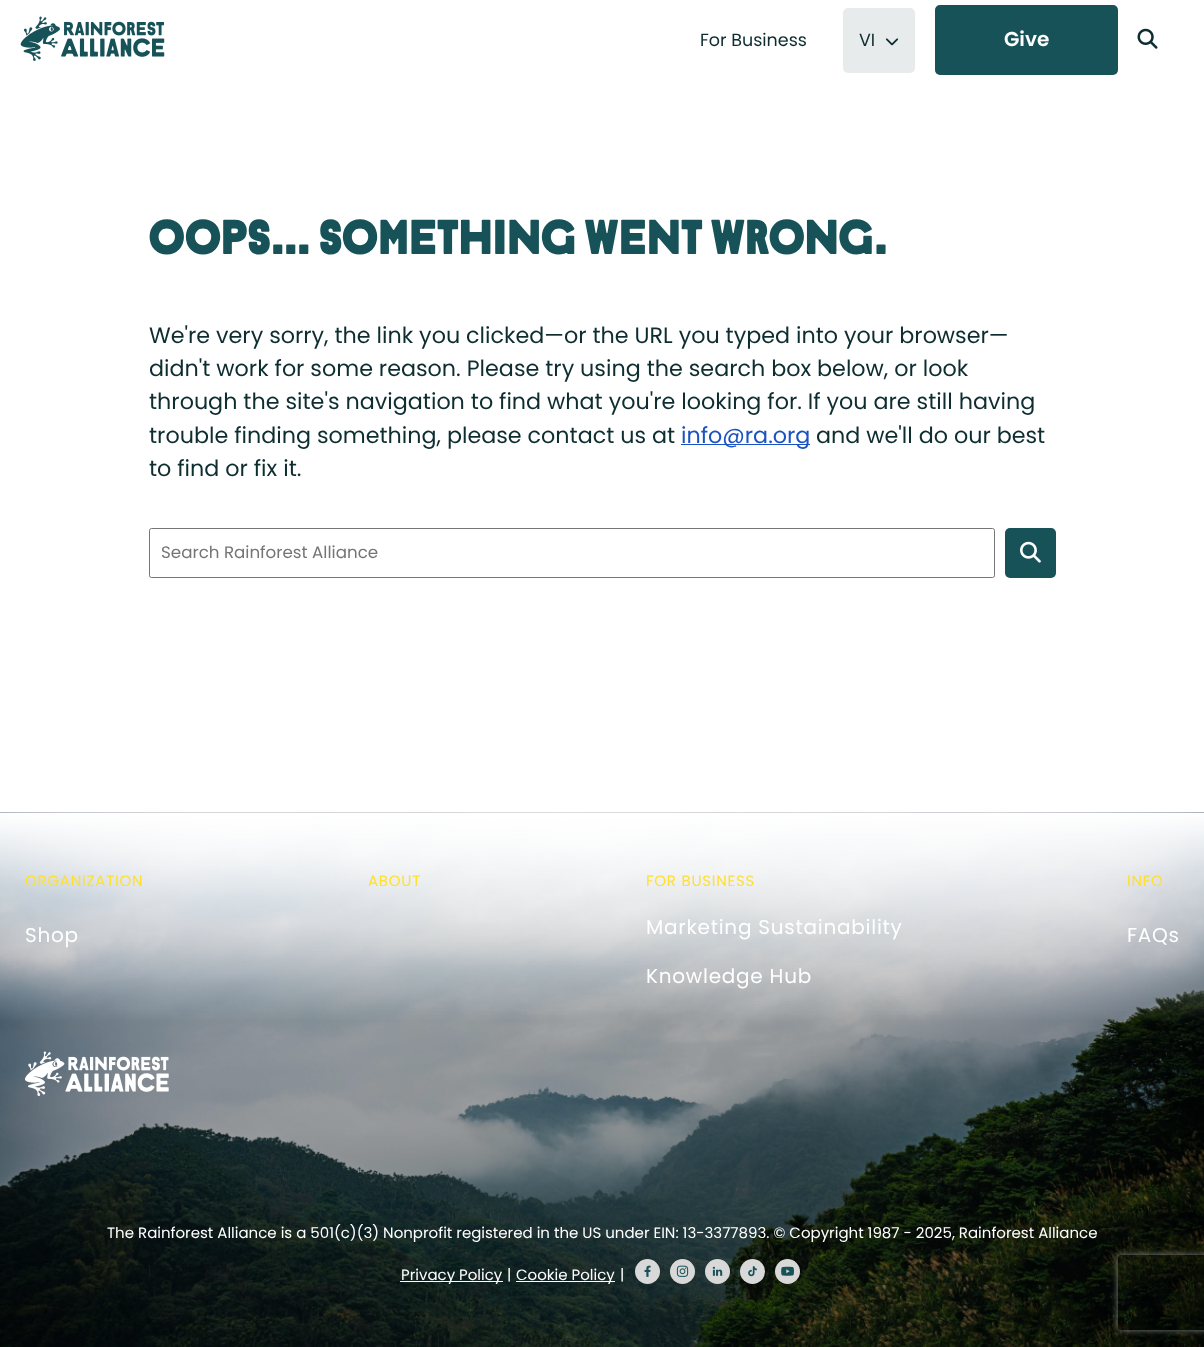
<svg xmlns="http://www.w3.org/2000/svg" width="1204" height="1347">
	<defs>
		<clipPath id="clip1"><path d="M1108 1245H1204V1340H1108ZM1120.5 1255H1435.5C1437 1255 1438 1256 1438 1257.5V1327.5C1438 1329 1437 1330 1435.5 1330H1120.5C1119 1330 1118 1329 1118 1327.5V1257.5C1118 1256 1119 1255 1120.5 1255Z" clip-rule="evenodd" /></clipPath>
	</defs>
	<rect width="100%" height="100%" fill="#FFFFFF" />
	<image x="20" y="16" width="145" height="45" href="assets/img1.png" />
	<text x="700" y="46" font-family="Poppins" font-size="17.5" fill="#0D2D30">For Business</text>
	<rect x="843" y="8" width="72" height="65" rx="5" fill="#E7EBEC" />
	<text x="859" y="46" font-family="Poppins" font-size="17.5" fill="#0D2D30">VI</text>
	<image x="885" y="38" width="14" height="8" href="assets/img2.png" />
	<rect x="935" y="5" width="183" height="70" rx="5" fill="#175259" />
	<text x="1004" y="46" font-family="Poppins" font-size="20" font-weight="600" fill="#FFFFFF">Give</text>
	<image x="1137" y="28" width="21" height="21" href="assets/img3.png" />
	<text x="149" y="254" font-family="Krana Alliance" font-size="49.1" font-weight="900" fill="#175259">OOPS... SOMETHING WENT WRONG.</text>
	<g font-family="Poppins" font-size="22.25" fill="#0D2D30">
		<text x="149" y="343">We're very sorry, the link you clicked—or the URL you typed into your browser—</text>
		<text x="149" y="376">didn't work for some reason. Please try using the search box below, or look</text>
		<text x="149" y="409">through the site's navigation to find what you're looking for. If you are still having</text>
		<text x="149" y="443">trouble finding something, please contact us at</text>
	</g>
	<rect x="681" y="444" width="129" height="1" fill="#1A52C2" />
	<text x="681" y="443" font-family="Poppins" font-size="22.25" fill="#1A52C2">info@ra.org</text>
	<g font-family="Poppins" font-size="22.25" fill="#0D2D30">
		<text x="816" y="443">and we'll do our best</text>
		<text x="149" y="476">to find or fix it.</text>
	</g>
	<rect x="149.5" y="528.5" width="845" height="49" rx="2" fill="none" stroke="#767676" />
	<text x="161" y="558" font-family="Poppins" font-size="16.7" fill="#757575">Search Rainforest Alliance</text>
	<rect x="1005" y="528" width="51" height="50" rx="5" fill="#175259" />
	<image x="1020" y="541" width="21" height="22" href="assets/img4.png" />
	<image x="0" y="812" width="1204" height="535" href="assets/img5.png" />
	<text x="25" y="886" font-family="Poppins" font-size="15" letter-spacing="0.75" fill="#FFE030">ORGANIZATION</text>
	<text x="25" y="942" font-family="Poppins" font-size="20" letter-spacing="0.75" fill="#FFFFFF">Shop</text>
	<g font-family="Poppins" font-size="15" letter-spacing="0.75" fill="#FFE030">
		<text x="368" y="886">ABOUT</text>
		<text x="646" y="886">FOR BUSINESS</text>
	</g>
	<g font-family="Poppins" font-size="20" letter-spacing="0.75" fill="#FFFFFF">
		<text x="646" y="934">Marketing Sustainability</text>
		<text x="646" y="983">Knowledge Hub</text>
	</g>
	<text x="1127" y="886" font-family="Poppins" font-size="15" letter-spacing="0.75" fill="#FFE030">INFO</text>
	<text x="1127" y="942" font-family="Poppins" font-size="20" letter-spacing="0.75" fill="#FFFFFF">FAQs</text>
	<image x="25" y="1051" width="144" height="45" href="assets/img6.png" />
	<text x="107" y="1238" font-family="Poppins" font-size="15" fill="#FFFFFF">The Rainforest Alliance is a 501(c)(3) Nonprofit registered in the US under EIN: 13-3377893. © Copyright 1987 - 2025, Rainforest Alliance</text>
	<rect x="400" y="1281" width="103" height="1" fill="#FFFFFF" />
	<g font-family="Poppins" font-size="15" fill="#FFFFFF">
		<text x="401" y="1280">Privacy Policy</text>
		<text x="507" y="1280">|</text>
	</g>
	<rect x="516" y="1281" width="99" height="1" fill="#FFFFFF" />
	<g font-family="Poppins" font-size="15" fill="#FFFFFF">
		<text x="516" y="1280">Cookie Policy</text>
		<text x="620" y="1280">|</text>
	</g>
	<circle cx="647.5" cy="1271.5" r="12.5" fill="#D8D8D8" />
	<image x="644" y="1265" width="7" height="12" href="assets/img7.png" />
	<circle cx="682.5" cy="1271.5" r="12.5" fill="#D8D8D8" />
	<image x="676" y="1265" width="13" height="12" href="assets/img8.png" />
	<circle cx="717.5" cy="1271.5" r="12.5" fill="#D8D8D8" />
	<image x="712" y="1266" width="11" height="10" href="assets/img9.png" />
	<circle cx="752.5" cy="1271.5" r="12.5" fill="#D8D8D8" />
	<image x="748" y="1266" width="9" height="11" href="assets/img10.png" />
	<circle cx="787.5" cy="1271.5" r="12.5" fill="#D8D8D8" />
	<image x="781" y="1266" width="13" height="10" href="assets/img11.png" />
	<g clip-path="url(#clip1)">
		<rect x="1118" y="1255" width="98" height="75" rx="2.5" fill="#808080" filter="blur(3px)" />
	</g>
</svg>
